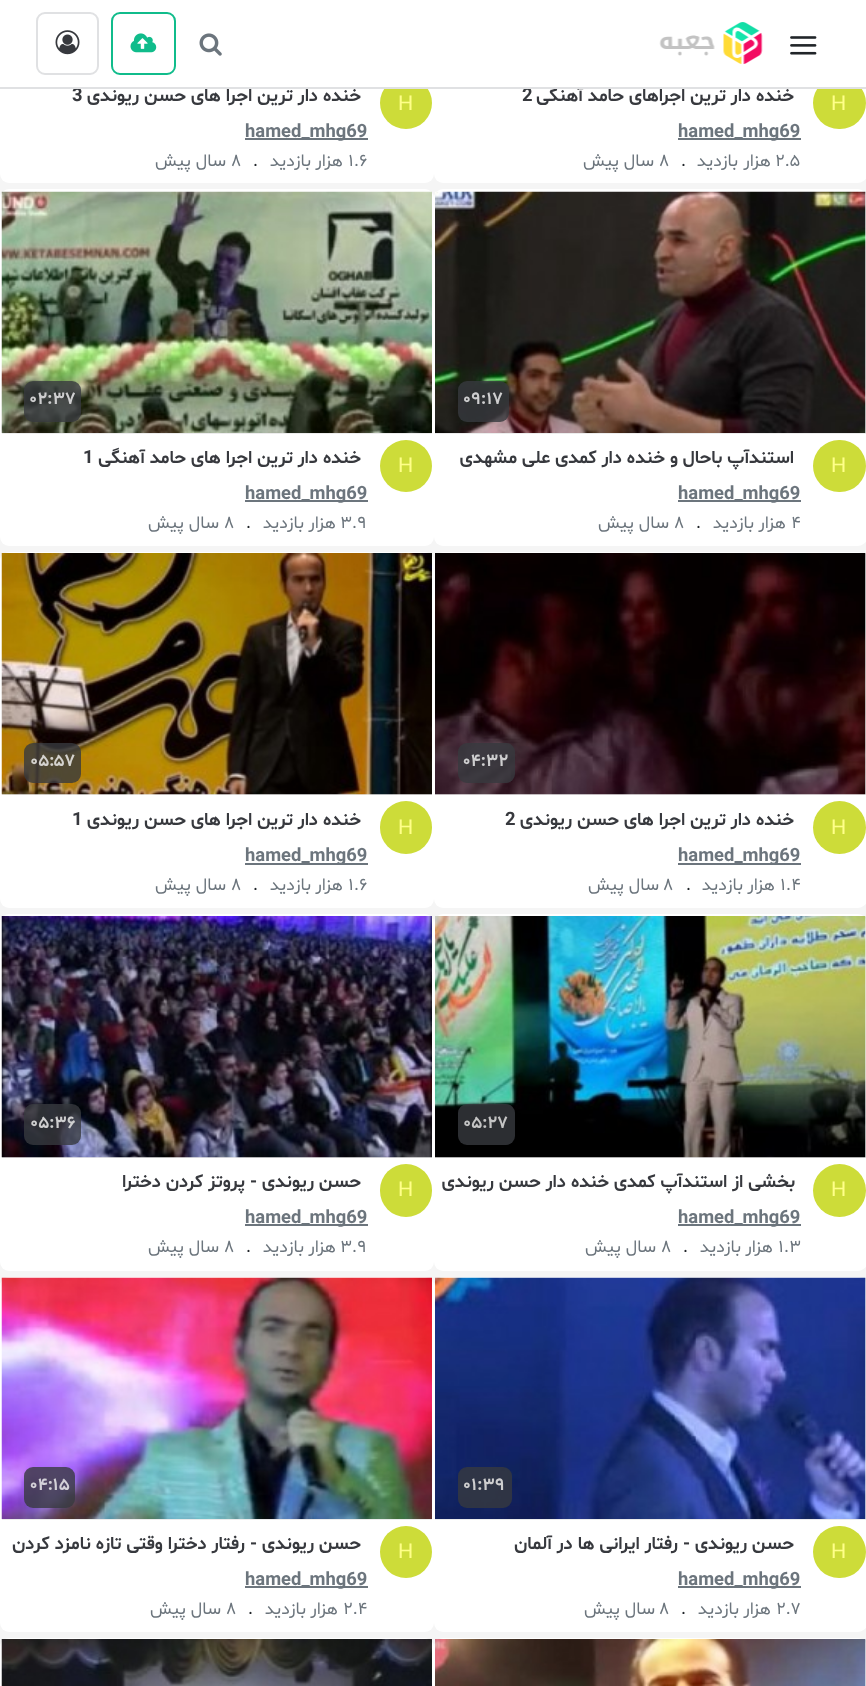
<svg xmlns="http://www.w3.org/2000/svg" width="866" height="1686">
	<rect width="100%" height="100%" fill="#F5F5F5" />
	<rect x="434" y="-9" width="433" height="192" rx="9" fill="#FFFFFF" />
	<rect x="813" y="77" width="53" height="52" rx="26" fill="#CDDC39" />
	<text x="794" y="101" font-family="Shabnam" font-size="18.4" font-weight="700" direction="rtl" fill="#37393E">خنده دار ترین اجراهای حامد آهنگی</text>
	<rect x="0" y="-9" width="434" height="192" rx="9" fill="#FFFFFF" />
	<circle cx="406" cy="103" r="26" fill="#CDDC39" />
	<rect x="385" y="77" width="476" height="10" fill="#FFFFFF" />
	<text x="522" y="101" font-family="Shabnam" font-size="18.4" font-weight="700" fill="#37393E">2</text>
	<text x="361" y="101" font-family="Shabnam" font-size="18.4" font-weight="700" direction="rtl" fill="#37393E">خنده دار ترین اجرا های حسن ریوندی</text>
	<text x="72" y="101" font-family="Shabnam" font-size="18.4" font-weight="700" fill="#37393E">3</text>
	<rect x="0" y="87" width="866" height="2" fill="#E0E1E3" />
	<image x="790" y="36" width="27" height="19" href="assets/img1.png" />
	<image x="659" y="22" width="104" height="42" href="assets/img2.png" />
	<image x="199" y="33" width="23" height="23" href="assets/img3.png" />
	<rect x="112" y="13" width="63" height="61" rx="8" fill="none" stroke="#10BC8B" stroke-width="2" />
	<image x="130" y="33" width="27" height="20" href="assets/img4.png" />
	<rect x="37" y="13" width="61" height="61" rx="8" fill="none" stroke="#E0E1E3" stroke-width="2" />
	<image x="55" y="30" width="25" height="25" href="assets/img5.png" />
	<text x="831" y="110" font-family="Liberation Sans" font-size="21" fill="#FFFF89">H</text>
	<rect x="678" y="138" width="123" height="2" fill="#6C757D" />
	<text x="678" y="137" font-family="Shabnam" font-size="18.4" font-weight="700" fill="#6C757D">hamed_mhg69</text>
	<text x="775" y="166" font-family="Shabnam" font-size="17.5" fill="#6C757D">۲.۵</text>
	<g font-family="Shabnam" font-size="17.5" direction="rtl" fill="#6C757D">
		<text x="771" y="166">هزار</text>
		<text x="738" y="166">بازدید</text>
	</g>
	<text x="681" y="166" font-family="Shabnam" font-size="17.5" fill="#212529">.</text>
	<text x="659" y="166" font-family="Shabnam" font-size="17.5" fill="#6C757D">۸</text>
	<text x="654" y="166" font-family="Shabnam" font-size="17.5" direction="rtl" fill="#6C757D">سال پیش</text>
	<text x="398" y="110" font-family="Liberation Sans" font-size="21" fill="#FFFF89">H</text>
	<rect x="245" y="138" width="123" height="2" fill="#6C757D" />
	<text x="245" y="137" font-family="Shabnam" font-size="18.4" font-weight="700" fill="#6C757D">hamed_mhg69</text>
	<text x="348" y="166" font-family="Shabnam" font-size="17.5" fill="#6C757D">۱.۶</text>
	<g font-family="Shabnam" font-size="17.5" direction="rtl" fill="#6C757D">
		<text x="343" y="166">هزار</text>
		<text x="311" y="166">بازدید</text>
	</g>
	<text x="253" y="166" font-family="Shabnam" font-size="17.5" fill="#212529">.</text>
	<text x="231" y="166" font-family="Shabnam" font-size="17.5" fill="#6C757D">۸</text>
	<text x="226" y="166" font-family="Shabnam" font-size="17.5" direction="rtl" fill="#6C757D">سال پیش</text>
	<rect x="434" y="189" width="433" height="357" rx="9" fill="#FFFFFF" />
	<rect x="435" y="192" width="431" height="242" fill="#414141" fill-opacity="0.1" />
	<image x="435" y="191" width="431" height="242" href="assets/img6.png" />
	<rect x="458" y="381" width="51" height="41" rx="9" fill="#37393E" fill-opacity="0.8" />
	<text x="463" y="404" font-family="Shabnam" font-size="18" font-weight="700" fill="#CECECF">۰۹:۱۷</text>
	<rect x="813" y="440" width="53" height="52" rx="26" fill="#CDDC39" />
	<text x="831" y="472" font-family="Liberation Sans" font-size="21" fill="#FFFF89">H</text>
	<text x="794" y="463" font-family="Shabnam" font-size="18.4" font-weight="700" direction="rtl" fill="#37393E">استندآپ باحال و خنده دار کمدی علی مشهدی</text>
	<rect x="678" y="500" width="123" height="2" fill="#6C757D" />
	<text x="678" y="499" font-family="Shabnam" font-size="18.4" font-weight="700" fill="#6C757D">hamed_mhg69</text>
	<text x="791" y="528" font-family="Shabnam" font-size="17.5" fill="#6C757D">۴</text>
	<g font-family="Shabnam" font-size="17.5" direction="rtl" fill="#6C757D">
		<text x="786" y="528">هزار</text>
		<text x="754" y="528">بازدید</text>
	</g>
	<text x="696" y="528" font-family="Shabnam" font-size="17.5" fill="#212529">.</text>
	<text x="674" y="528" font-family="Shabnam" font-size="17.5" fill="#6C757D">۸</text>
	<text x="669" y="528" font-family="Shabnam" font-size="17.5" direction="rtl" fill="#6C757D">سال پیش</text>
	<rect x="0" y="189" width="434" height="357" rx="9" fill="#FFFFFF" />
	<image x="1" y="191" width="431" height="242" href="assets/img7.png" />
	<rect x="24" y="381" width="57" height="41" rx="9" fill="#37393E" fill-opacity="0.8" />
	<text x="30" y="404" font-family="Shabnam" font-size="18" font-weight="700" fill="#CECECF">۰۲:۳۷</text>
	<rect x="2" y="433" width="430" height="1" fill="#ECECEC" />
	<circle cx="406" cy="466" r="26" fill="#CDDC39" />
	<text x="398" y="472" font-family="Liberation Sans" font-size="21" fill="#FFFF89">H</text>
	<text x="361" y="463" font-family="Shabnam" font-size="18.4" font-weight="700" direction="rtl" fill="#37393E">خنده دار ترین اجرا های حامد آهنگی</text>
	<text x="83" y="463" font-family="Shabnam" font-size="18.4" font-weight="700" fill="#37393E">1</text>
	<rect x="245" y="500" width="123" height="2" fill="#6C757D" />
	<text x="245" y="499" font-family="Shabnam" font-size="18.4" font-weight="700" fill="#6C757D">hamed_mhg69</text>
	<text x="340" y="528" font-family="Shabnam" font-size="17.5" fill="#6C757D">۳.۹</text>
	<g font-family="Shabnam" font-size="17.5" direction="rtl" fill="#6C757D">
		<text x="336" y="528">هزار</text>
		<text x="304" y="528">بازدید</text>
	</g>
	<text x="246" y="528" font-family="Shabnam" font-size="17.5" fill="#212529">.</text>
	<text x="224" y="528" font-family="Shabnam" font-size="17.5" fill="#6C757D">۸</text>
	<text x="219" y="528" font-family="Shabnam" font-size="17.5" direction="rtl" fill="#6C757D">سال پیش</text>
	<rect x="434" y="552" width="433" height="356" rx="9" fill="#FFFFFF" />
	<rect x="435" y="554" width="431" height="241" fill="#414141" fill-opacity="0.1" />
	<image x="435" y="553" width="431" height="242" href="assets/img8.png" />
	<rect x="458" y="743" width="57" height="40" rx="9" fill="#37393E" fill-opacity="0.8" />
	<text x="463" y="766" font-family="Shabnam" font-size="18" font-weight="700" fill="#CECECF">۰۴:۳۲</text>
	<circle cx="839.5" cy="827.5" r="26.5" fill="#CDDC39" />
	<text x="831" y="834" font-family="Liberation Sans" font-size="21" fill="#FFFF89">H</text>
	<text x="794" y="825" font-family="Shabnam" font-size="18.4" font-weight="700" direction="rtl" fill="#37393E">خنده دار ترین اجرا های حسن ریوندی</text>
	<text x="505" y="825" font-family="Shabnam" font-size="18.4" font-weight="700" fill="#37393E">2</text>
	<rect x="678" y="863" width="123" height="2" fill="#6C757D" />
	<text x="678" y="861" font-family="Shabnam" font-size="18.4" font-weight="700" fill="#6C757D">hamed_mhg69</text>
	<text x="780" y="890" font-family="Shabnam" font-size="17.5" fill="#6C757D">۱.۴</text>
	<g font-family="Shabnam" font-size="17.5" direction="rtl" fill="#6C757D">
		<text x="775" y="890">هزار</text>
		<text x="743" y="890">بازدید</text>
	</g>
	<text x="686" y="890" font-family="Shabnam" font-size="17.5" fill="#212529">.</text>
	<text x="663" y="890" font-family="Shabnam" font-size="17.5" fill="#6C757D">۸</text>
	<text x="659" y="890" font-family="Shabnam" font-size="17.5" direction="rtl" fill="#6C757D">سال پیش</text>
	<rect x="0" y="552" width="434" height="356" rx="9" fill="#FFFFFF" />
	<rect x="2" y="794" width="430" height="1" fill="#414141" fill-opacity="0.1" />
	<image x="1" y="553" width="431" height="242" href="assets/img9.png" />
	<rect x="24" y="743" width="57" height="40" rx="9" fill="#37393E" fill-opacity="0.8" />
	<text x="30" y="766" font-family="Shabnam" font-size="18" font-weight="700" fill="#D4D2CE">۰۵:۵۷</text>
	<rect x="380" y="801" width="52" height="53" rx="26" fill="#CDDC39" />
	<text x="398" y="834" font-family="Liberation Sans" font-size="21" fill="#FFFF89">H</text>
	<text x="361" y="825" font-family="Shabnam" font-size="18.4" font-weight="700" direction="rtl" fill="#37393E">خنده دار ترین اجرا های حسن ریوندی</text>
	<text x="72" y="825" font-family="Shabnam" font-size="18.4" font-weight="700" fill="#37393E">1</text>
	<rect x="245" y="863" width="123" height="2" fill="#6C757D" />
	<text x="245" y="861" font-family="Shabnam" font-size="18.4" font-weight="700" fill="#6C757D">hamed_mhg69</text>
	<text x="348" y="890" font-family="Shabnam" font-size="17.5" fill="#6C757D">۱.۶</text>
	<g font-family="Shabnam" font-size="17.5" direction="rtl" fill="#6C757D">
		<text x="343" y="890">هزار</text>
		<text x="311" y="890">بازدید</text>
	</g>
	<text x="253" y="890" font-family="Shabnam" font-size="17.5" fill="#212529">.</text>
	<text x="231" y="890" font-family="Shabnam" font-size="17.5" fill="#6C757D">۸</text>
	<text x="226" y="890" font-family="Shabnam" font-size="17.5" direction="rtl" fill="#6C757D">سال پیش</text>
	<rect x="434" y="914" width="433" height="357" rx="9" fill="#FFFFFF" />
	<rect x="435" y="917" width="431" height="241" fill="#414141" fill-opacity="0.1" />
	<image x="435" y="916" width="431" height="242" href="assets/img10.png" />
	<rect x="458" y="1104" width="57" height="41" rx="9" fill="#37393E" fill-opacity="0.8" />
	<text x="463" y="1128" font-family="Shabnam" font-size="18" font-weight="700" fill="#C4C4C4">۰۵:۲۷</text>
	<circle cx="839.5" cy="1190.5" r="26.5" fill="#CDDC39" />
	<text x="831" y="1196" font-family="Liberation Sans" font-size="21" fill="#FFFF89">H</text>
	<text x="795" y="1187" font-family="Shabnam" font-size="18.4" font-weight="700" direction="rtl" fill="#37393E">بخشی از استندآپ کمدی خنده دار حسن ریوندی</text>
	<rect x="678" y="1224" width="123" height="2" fill="#6C757D" />
	<text x="678" y="1223" font-family="Shabnam" font-size="18.4" font-weight="700" fill="#6C757D">hamed_mhg69</text>
	<text x="778" y="1252" font-family="Shabnam" font-size="17.5" fill="#6C757D">۱.۳</text>
	<g font-family="Shabnam" font-size="17.5" direction="rtl" fill="#6C757D">
		<text x="773" y="1252">هزار</text>
		<text x="741" y="1252">بازدید</text>
	</g>
	<text x="683" y="1252" font-family="Shabnam" font-size="17.5" fill="#212529">.</text>
	<text x="661" y="1252" font-family="Shabnam" font-size="17.5" fill="#6C757D">۸</text>
	<text x="656" y="1252" font-family="Shabnam" font-size="17.5" direction="rtl" fill="#6C757D">سال پیش</text>
	<rect x="0" y="914" width="434" height="357" rx="9" fill="#FFFFFF" />
	<rect x="2" y="1157" width="430" height="1" fill="#ECECEC" />
	<image x="1" y="916" width="431" height="242" href="assets/img11.png" />
	<rect x="24" y="1104" width="57" height="41" rx="9" fill="#37393E" fill-opacity="0.8" />
	<text x="30" y="1128" font-family="Shabnam" font-size="18" font-weight="700" fill="#CECECF">۰۵:۳۶</text>
	<rect x="380" y="1164" width="52" height="53" rx="26" fill="#CDDC39" />
	<text x="398" y="1196" font-family="Liberation Sans" font-size="21" fill="#FFFF89">H</text>
	<text x="361" y="1187" font-family="Shabnam" font-size="18.4" font-weight="700" direction="rtl" fill="#37393E">حسن ریوندی - پروتز کردن دخترا</text>
	<rect x="245" y="1224" width="123" height="2" fill="#6C757D" />
	<text x="245" y="1223" font-family="Shabnam" font-size="18.4" font-weight="700" fill="#6C757D">hamed_mhg69</text>
	<text x="340" y="1252" font-family="Shabnam" font-size="17.5" fill="#6C757D">۳.۹</text>
	<g font-family="Shabnam" font-size="17.5" direction="rtl" fill="#6C757D">
		<text x="336" y="1252">هزار</text>
		<text x="304" y="1252">بازدید</text>
	</g>
	<text x="246" y="1252" font-family="Shabnam" font-size="17.5" fill="#212529">.</text>
	<text x="224" y="1252" font-family="Shabnam" font-size="17.5" fill="#6C757D">۸</text>
	<text x="219" y="1252" font-family="Shabnam" font-size="17.5" direction="rtl" fill="#6C757D">سال پیش</text>
	<rect x="434" y="1277" width="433" height="355" rx="9" fill="#FFFFFF" />
	<rect x="435" y="1278" width="431" height="242" fill="#414141" fill-opacity="0.1" />
	<image x="435" y="1277" width="431" height="242" href="assets/img12.png" />
	<rect x="458" y="1467" width="54" height="41" rx="9" fill="#37393E" fill-opacity="0.8" />
	<text x="463" y="1490" font-family="Shabnam" font-size="18" font-weight="700" fill="#CECECF">۰۱:۳۹</text>
	<rect x="813" y="1526" width="53" height="52" rx="26" fill="#CDDC39" />
	<text x="831" y="1558" font-family="Liberation Sans" font-size="21" fill="#FFFF89">H</text>
	<text x="794" y="1549" font-family="Shabnam" font-size="18.4" font-weight="700" direction="rtl" fill="#37393E">حسن ریوندی - رفتار ایرانی ها در آلمان</text>
	<rect x="678" y="1586" width="123" height="2" fill="#6C757D" />
	<text x="678" y="1585" font-family="Shabnam" font-size="18.4" font-weight="700" fill="#6C757D">hamed_mhg69</text>
	<text x="776" y="1614" font-family="Shabnam" font-size="17.5" fill="#6C757D">۲.۷</text>
	<g font-family="Shabnam" font-size="17.5" direction="rtl" fill="#6C757D">
		<text x="771" y="1614">هزار</text>
		<text x="739" y="1614">بازدید</text>
	</g>
	<text x="681" y="1614" font-family="Shabnam" font-size="17.5" fill="#212529">.</text>
	<text x="659" y="1614" font-family="Shabnam" font-size="17.5" fill="#6C757D">۸</text>
	<text x="655" y="1614" font-family="Shabnam" font-size="17.5" direction="rtl" fill="#6C757D">سال پیش</text>
	<rect x="0" y="1277" width="434" height="355" rx="9" fill="#FFFFFF" />
	<image x="1" y="1277" width="431" height="242" href="assets/img13.png" />
	<rect x="24" y="1467" width="51" height="41" rx="9" fill="#37393E" fill-opacity="0.8" />
	<text x="30" y="1490" font-family="Shabnam" font-size="18" font-weight="700" fill="#D3D1D8">۰۴:۱۵</text>
	<rect x="2" y="1519" width="430" height="1" fill="#414141" fill-opacity="0.1" />
	<circle cx="406" cy="1552" r="26" fill="#CDDC39" />
	<text x="398" y="1558" font-family="Liberation Sans" font-size="21" fill="#FFFF89">H</text>
	<text x="361" y="1549" font-family="Shabnam" font-size="18.4" font-weight="700" direction="rtl" fill="#37393E">حسن ریوندی - رفتار دخترا وقتی تازه نامزد کردن</text>
	<rect x="245" y="1586" width="123" height="2" fill="#6C757D" />
	<text x="245" y="1585" font-family="Shabnam" font-size="18.4" font-weight="700" fill="#6C757D">hamed_mhg69</text>
	<text x="343" y="1614" font-family="Shabnam" font-size="17.5" fill="#6C757D">۲.۴</text>
	<g font-family="Shabnam" font-size="17.5" direction="rtl" fill="#6C757D">
		<text x="338" y="1614">هزار</text>
		<text x="306" y="1614">بازدید</text>
	</g>
	<text x="248" y="1614" font-family="Shabnam" font-size="17.5" fill="#212529">.</text>
	<text x="226" y="1614" font-family="Shabnam" font-size="17.5" fill="#6C757D">۸</text>
	<text x="221" y="1614" font-family="Shabnam" font-size="17.5" direction="rtl" fill="#6C757D">سال پیش</text>
	<rect x="434" y="1638" width="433" height="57" rx="9" fill="#FFFFFF" />
	<rect x="865" y="1640" width="1" height="46" fill="#414141" fill-opacity="0.1" />
	<image x="435" y="1639" width="431" height="47" href="assets/img14.png" />
	<rect x="0" y="1638" width="434" height="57" rx="9" fill="#FFFFFF" />
	<image x="1" y="1639" width="431" height="47" href="assets/img15.png" />
</svg>
